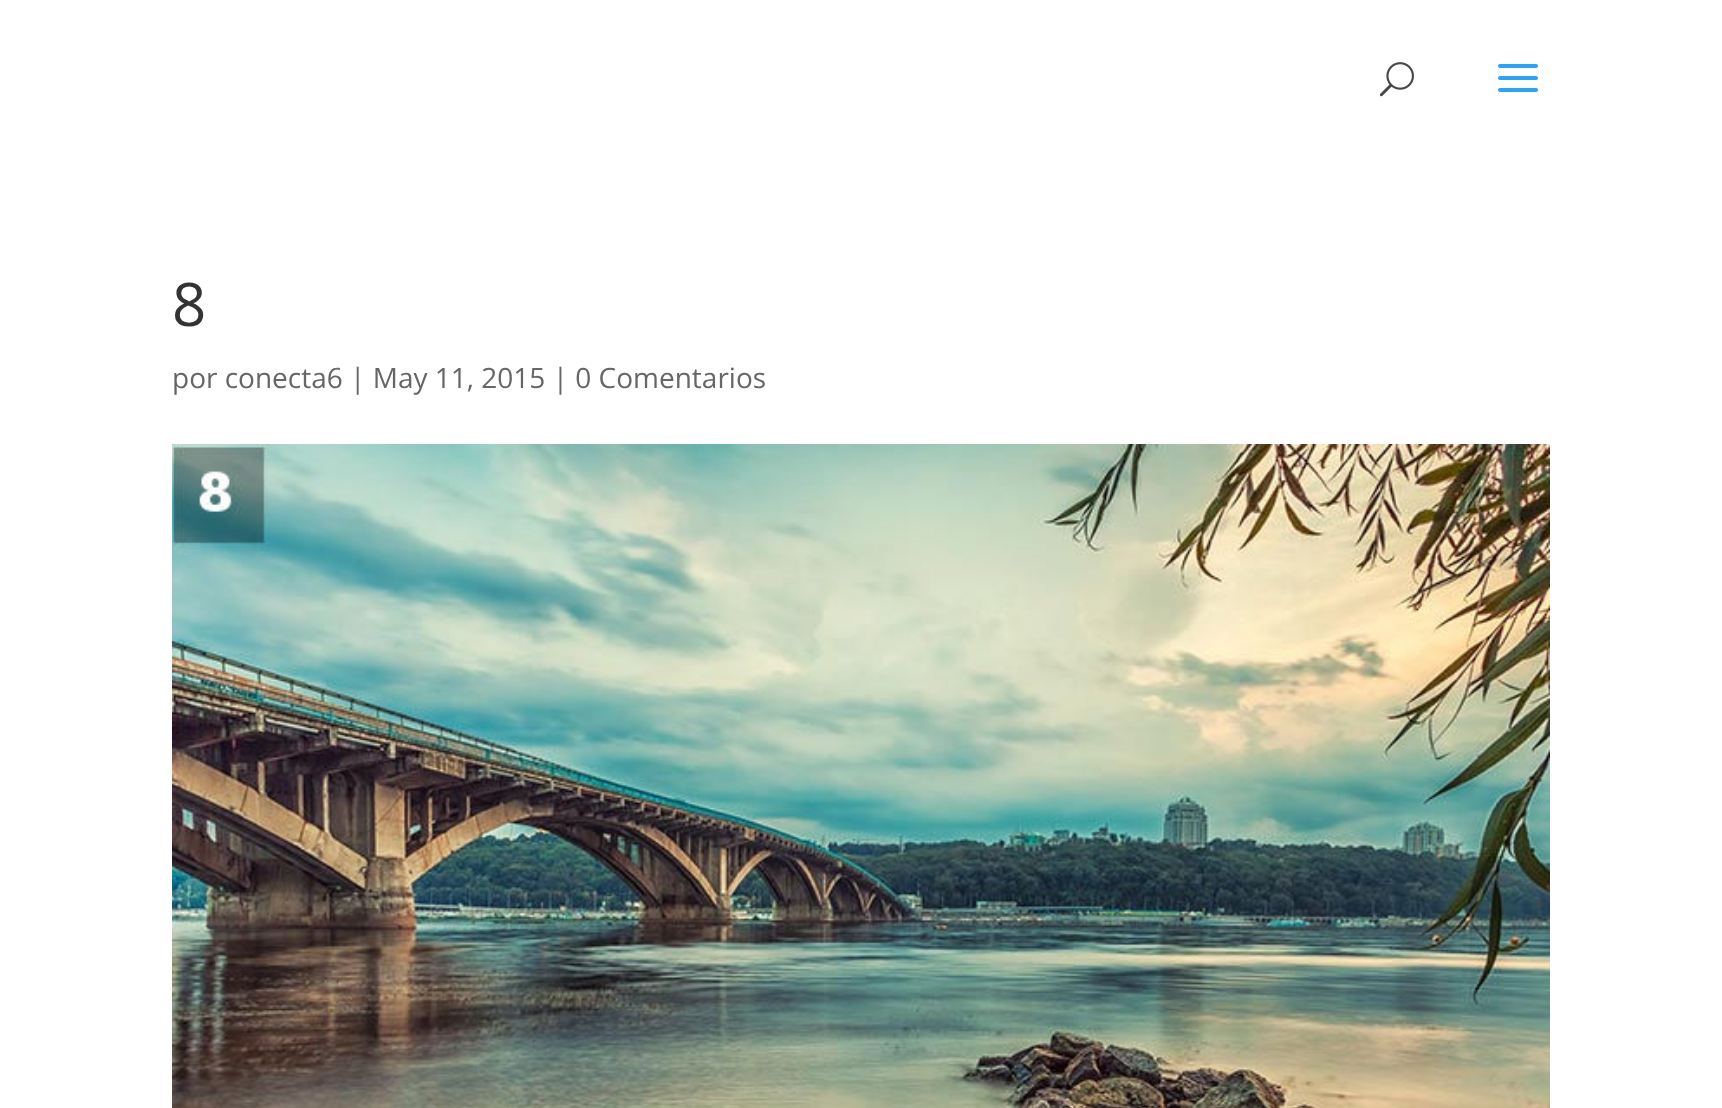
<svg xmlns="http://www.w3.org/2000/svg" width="1722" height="1108">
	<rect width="100%" height="100%" fill="#FFFFFF" />
	<image x="1379" y="62" width="35" height="35" href="assets/img1.png" />
	<image x="1498" y="64" width="40" height="28" href="assets/img2.png" />
	<text x="172" y="326" font-family="Open Sans" font-size="60" fill="#333333">8</text>
	<text x="172" y="388" font-family="Open Sans" font-size="28" fill="#666666">por conecta6 | May 11, 2015 | 0 Comentarios</text>
	<image x="172" y="444" width="1378" height="664" href="assets/img3.png" />
</svg>
